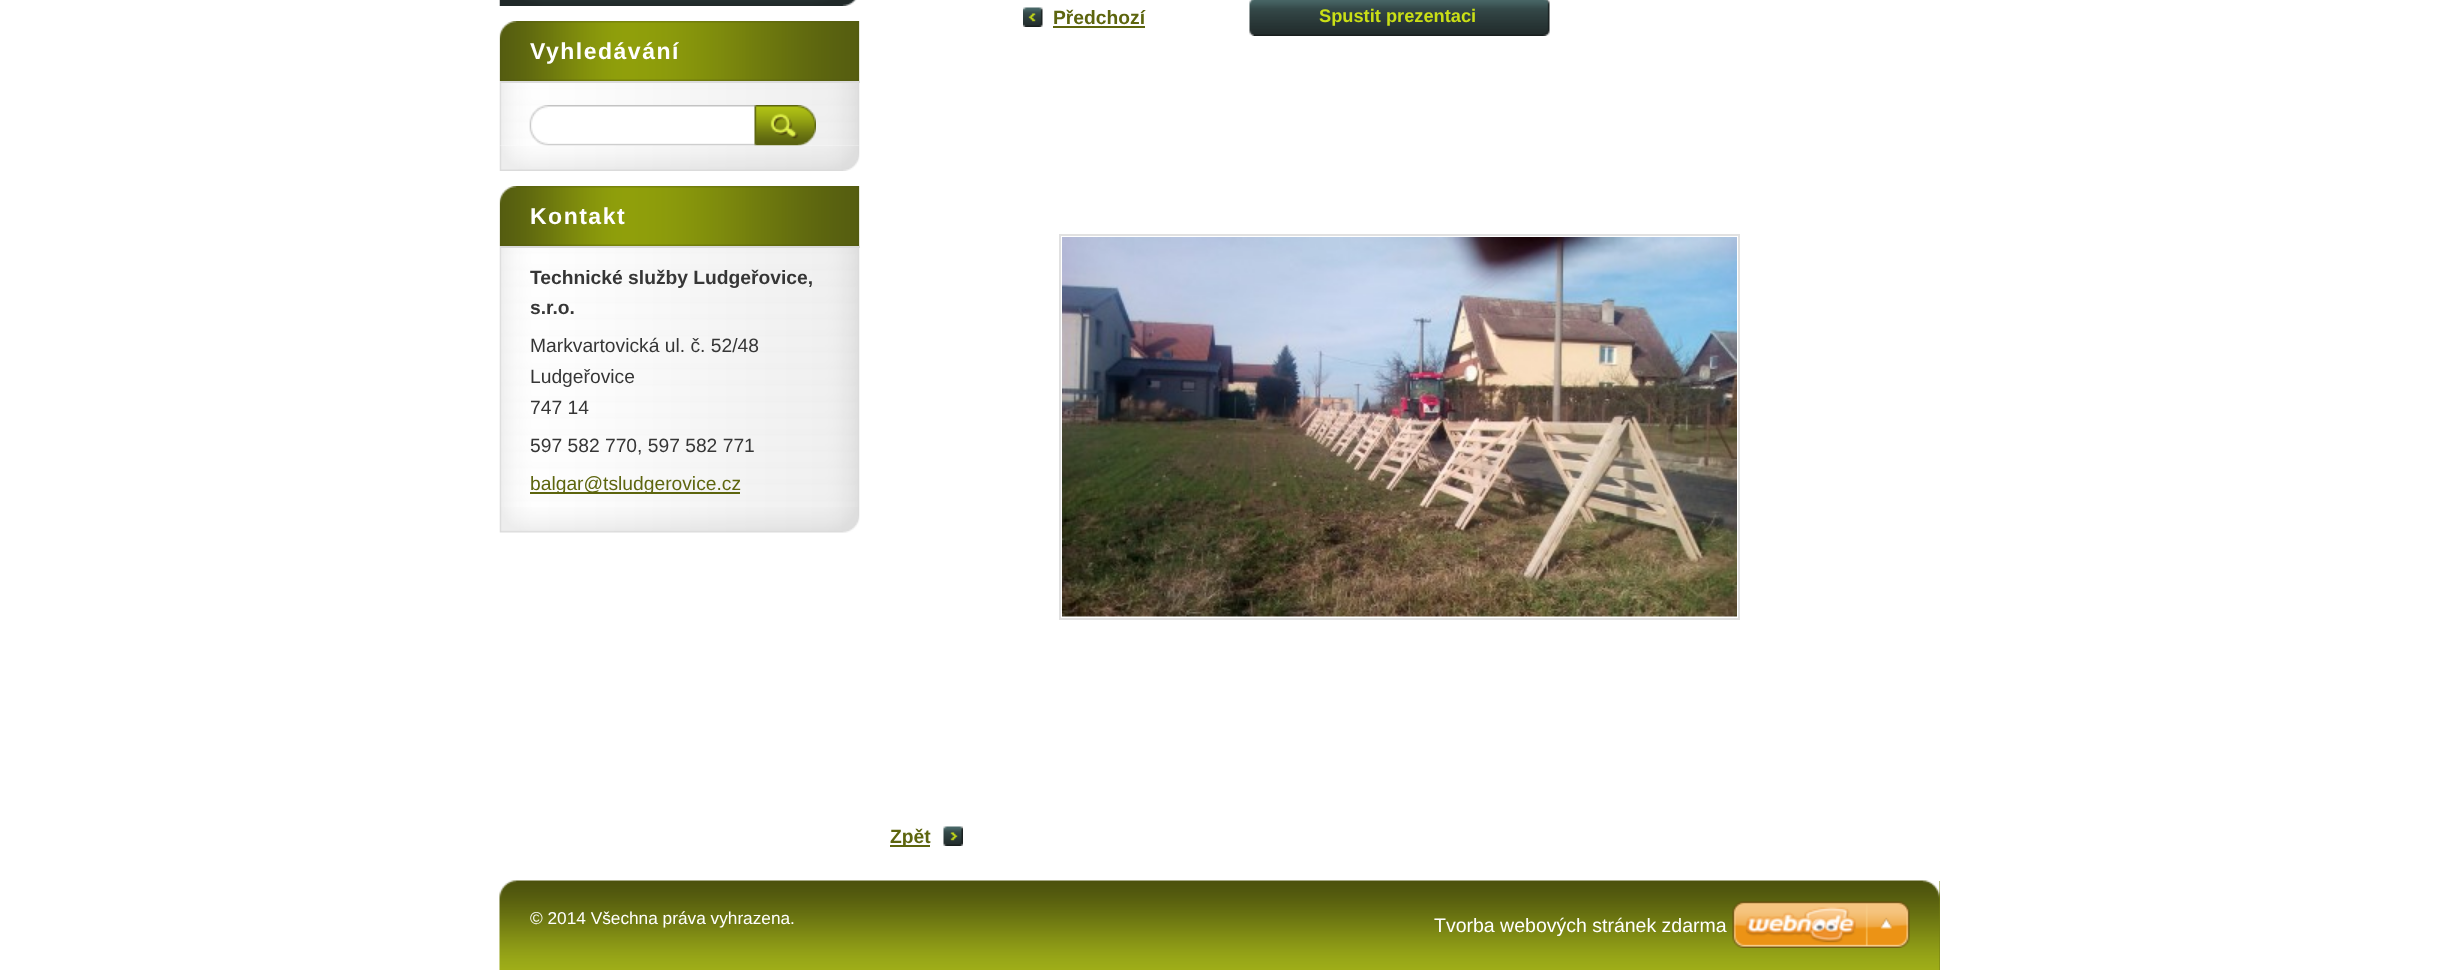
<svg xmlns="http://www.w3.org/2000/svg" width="2439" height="970">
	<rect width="100%" height="100%" fill="#FFFFFF" />
	<image x="499" y="0" width="358" height="6" href="assets/img1.png" />
	<image x="499" y="145" width="361" height="26" href="assets/img2.png" />
	<image x="499" y="21" width="361" height="60" href="assets/img3.png" />
	<text x="530" y="59" font-family="Liberation Sans" font-size="23" font-weight="700" letter-spacing="1.5" fill="#FFFFFF">Vyhledávání</text>
	<image x="499" y="81" width="361" height="65" href="assets/img4.png" />
	<rect x="500" y="81" width="360" height="2" fill="#DBDBDB" />
	<image x="529" y="105" width="227" height="41" href="assets/img5.png" />
	<image x="754" y="105" width="62" height="41" href="assets/img6.png" />
	<image x="499" y="507" width="361" height="26" href="assets/img7.png" />
	<image x="499" y="186" width="361" height="60" href="assets/img3.png" />
	<text x="530" y="224" font-family="Liberation Sans" font-size="23" font-weight="700" letter-spacing="1.5" fill="#FFFFFF">Kontakt</text>
	<image x="499" y="246" width="361" height="261" href="assets/img8.png" />
	<rect x="500" y="246" width="360" height="2" fill="#DBDBDB" />
	<g font-family="Liberation Sans" font-size="19.25" font-weight="700" fill="#363636">
		<text x="530" y="284">Technické služby Ludgeřovice,</text>
		<text x="530" y="314">s.r.o.</text>
	</g>
	<g font-family="Liberation Sans" font-size="19.25" fill="#363636">
		<text x="530" y="352">Markvartovická ul. č. 52/48</text>
		<text x="530" y="383">Ludgeřovice</text>
		<text x="530" y="414">747 14</text>
		<text x="530" y="452">597 582 770, 597 582 771</text>
	</g>
	<rect x="530" y="492" width="210" height="2" fill="#5D650E" />
	<text x="530" y="490" font-family="Liberation Sans" font-size="19.25" fill="#5D650E">balgar@tsludgerovice.cz</text>
	<image x="1023" y="7" width="20" height="20" href="assets/img9.png" />
	<text x="1053" y="24" font-family="Liberation Sans" font-size="19.25" font-weight="700" fill="#5D650E">Předchozí</text>
	<rect x="1053" y="26" width="92" height="2" fill="#5D650E" />
	<image x="1249" y="0" width="5" height="36" href="assets/img10.png" />
	<image x="1254" y="0" width="296" height="36" href="assets/img11.png" />
	<text x="1319" y="22" font-family="Liberation Sans" font-size="18.25" font-weight="700" fill="#CADF16">Spustit prezentaci</text>
	<rect x="1060" y="235" width="679" height="384" fill="none" stroke="#E1E1E1" stroke-width="2" />
	<image x="1062" y="237" width="675" height="380" href="assets/img12.png" />
	<image x="943" y="826" width="20" height="20" href="assets/img13.png" />
	<rect x="890" y="845" width="40" height="2" fill="#5D650E" />
	<text x="890" y="843" font-family="Liberation Sans" font-size="19.25" font-weight="700" fill="#5D650E">Zpět</text>
	<rect x="1939" y="881" width="1" height="89" fill="#727D12" />
	<image x="499" y="880" width="1441" height="90" href="assets/img14.png" />
	<text x="530" y="924" font-family="Liberation Sans" font-size="17.25" fill="#FFFFFF">© 2014 Všechna práva vyhrazena.</text>
	<text x="1434" y="932" font-family="Liberation Sans" font-size="19.5" fill="#FFFFFF">Tvorba webových stránek zdarma</text>
	<image x="1732" y="901" width="178" height="47" href="assets/img15.png" />
</svg>
